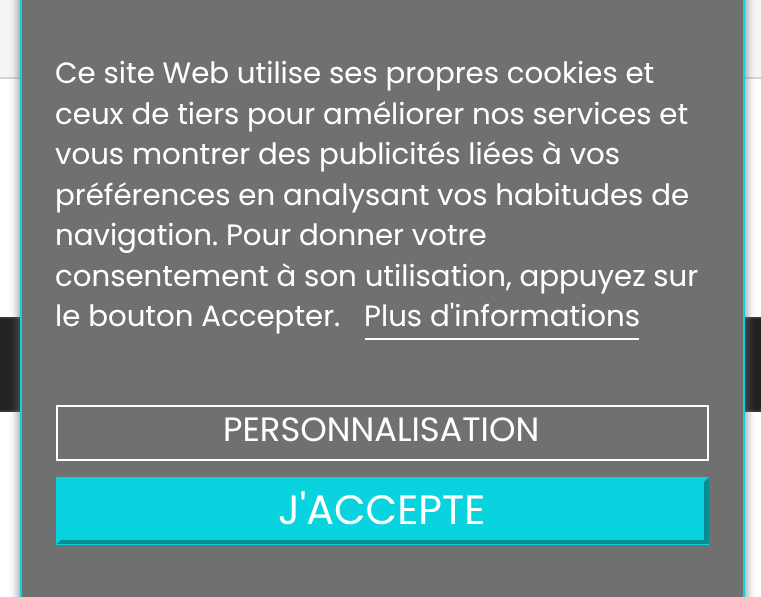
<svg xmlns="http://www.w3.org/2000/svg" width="761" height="597">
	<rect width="100%" height="100%" fill="#FFFFFF" />
	<rect x="0" y="0" width="761" height="77" fill="#F6F6F6" />
	<rect x="0" y="77" width="761" height="2" fill="#D6D4D4" />
	<rect x="0" y="319" width="761" height="91" fill="#222222" />
	<rect x="0" y="317" width="761" height="2" fill="#363636" />
	<rect x="0" y="410" width="761" height="2" fill="#363636" />
	<rect x="20" y="-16" width="725" height="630" fill="#707070" filter="blur(5.5px)" />
	<rect x="21" y="-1" width="723" height="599" fill="#707070" stroke="#09D3DE" stroke-width="2" />
	<g font-family="Poppins" font-size="29.25" fill="#FFFFFF">
		<text x="55" y="83">Ce site Web utilise ses propres cookies et</text>
		<text x="55" y="124">ceux de tiers pour améliorer nos services et</text>
		<text x="55" y="164">vous montrer des publicités liées à vos</text>
		<text x="55" y="205">préférences en analysant vos habitudes de</text>
		<text x="55" y="245">navigation. Pour donner votre</text>
		<text x="55" y="286">consentement à son utilisation, appuyez sur</text>
		<text x="55" y="326">le bouton Accepter.</text>
		<text x="364" y="326">Plus d'informations</text>
	</g>
	<rect x="365" y="338" width="274" height="2" fill="#FFFFFF" />
	<rect x="57" y="406" width="651" height="54" fill="none" stroke="#FFFFFF" stroke-width="2" />
	<text x="223" y="441" font-family="Poppins" font-size="33.75" fill="#FFFFFF">PERSONNALISATION</text>
	<rect x="56" y="477" width="653" height="68" fill="#09D3DE" />
	<path d="M709 477V544L704 540V482Z" fill="#068D94" />
	<path d="M709 544H56L61 540H704Z" fill="#068D94" />
	<path d="M56 544V477L61 482V540Z" fill="#09D3DE" />
	<text x="278" y="524" font-family="Poppins" font-size="41" fill="#FFFFFF">J'ACCEPTE</text>
</svg>
